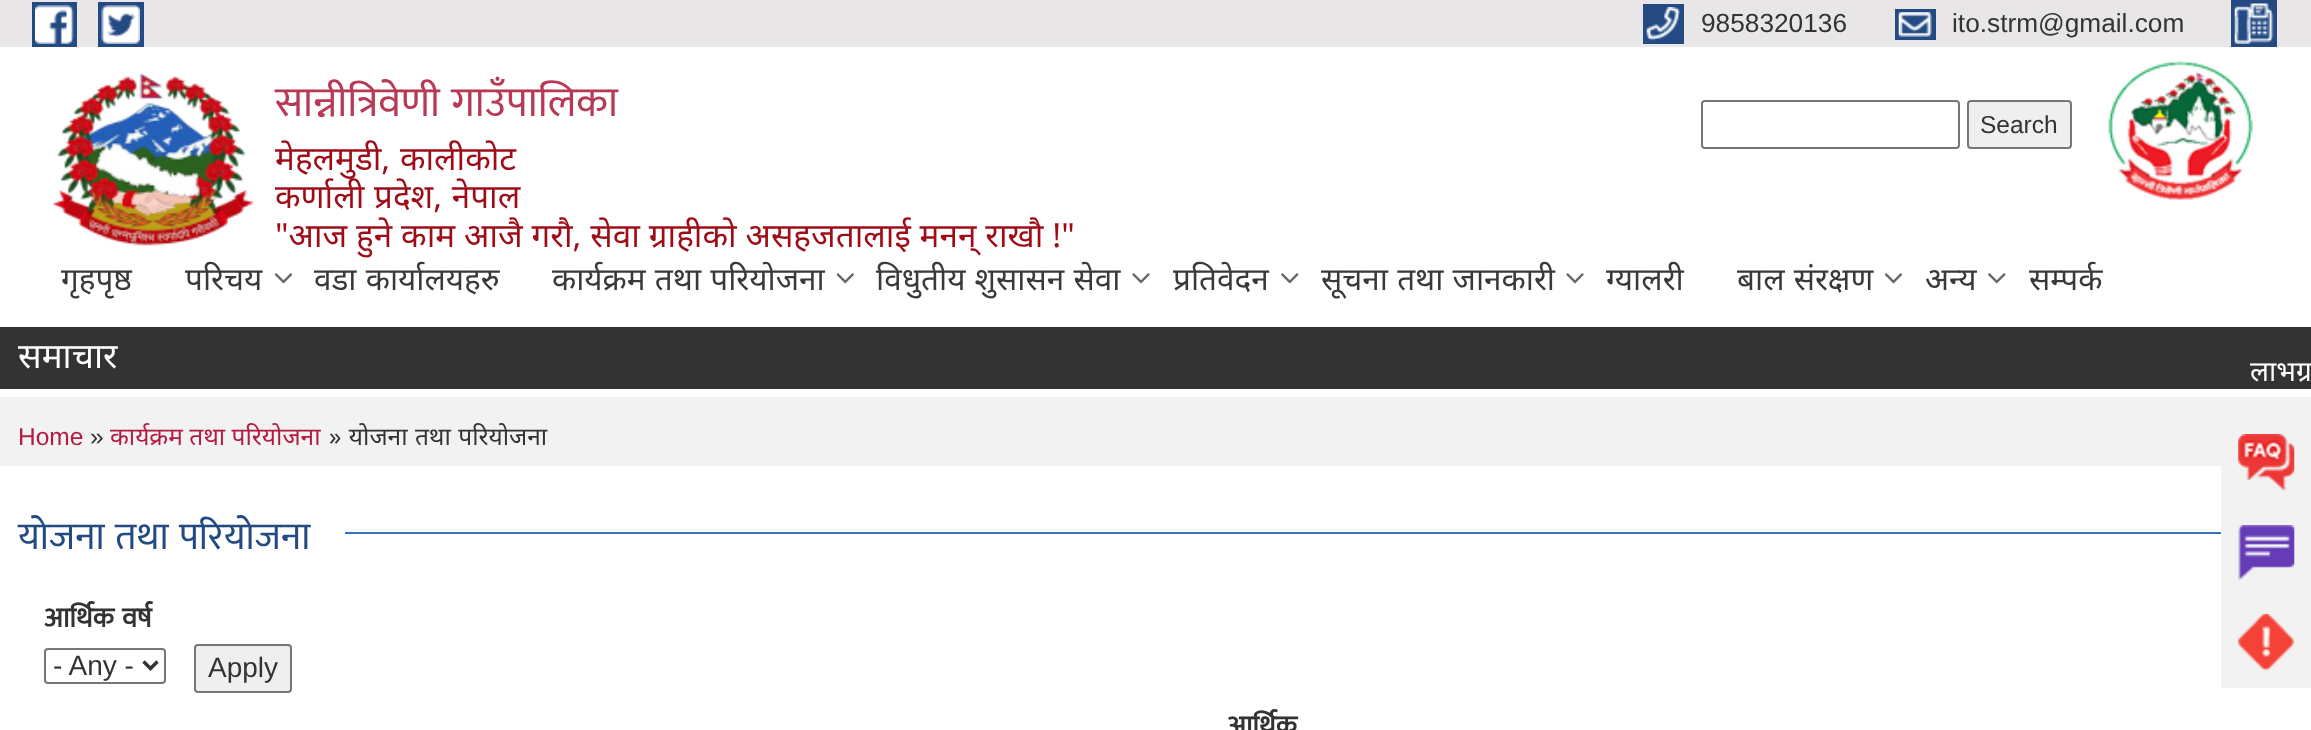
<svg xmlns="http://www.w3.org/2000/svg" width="2311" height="730">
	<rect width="100%" height="100%" fill="#FFFFFF" />
	<rect x="0" y="0" width="2311" height="47" fill="#E8E6E6" />
	<rect x="32" y="2" width="45" height="45" fill="#234A83" />
	<rect x="98" y="2" width="46" height="45" fill="#234A83" />
	<image x="35" y="5" width="39" height="39" href="assets/img1.png" />
	<image x="101" y="5" width="39" height="39" href="assets/img2.png" />
	<rect x="2231" y="0" width="46" height="47" fill="#234A83" />
	<rect x="1643" y="4" width="41" height="40" fill="#234A83" />
	<image x="1646" y="7" width="34" height="34" href="assets/img3.png" />
	<text x="1701" y="32" font-family="Liberation Sans" font-size="26.25" fill="#333333">9858320136</text>
	<rect x="1895" y="9" width="41" height="31" fill="#234A83" />
	<image x="1898" y="12" width="34" height="25" href="assets/img4.png" />
	<text x="1952" y="32" font-family="Liberation Sans" font-size="26.25" fill="#333333">ito.strm@gmail.com</text>
	<image x="2234" y="3" width="40" height="41" href="assets/img5.png" />
	<image x="52" y="73" width="203" height="173" href="assets/img6.png" />
	<text x="275" y="116" word-spacing="2" font-family="Mukta" font-size="42" fill="#B83955">सान्नीत्रिवेणी गाउँपालिका</text>
	<g font-family="Noto Sans" font-size="33.25" fill="#9E0C18">
		<text x="275" y="170" word-spacing="1">मेहलमुडी, कालीकोट</text>
		<text x="275" y="208" word-spacing="1">कर्णाली प्रदेश, नेपाल</text>
		<text x="275" y="247" word-spacing="0.25">"आज हुने काम आजै गरौ, सेवा ग्राहीको असहजतालाई मनन् राखौ !"</text>
	</g>
	<rect x="1702" y="101" width="257" height="47" rx="3" fill="none" stroke="#767676" stroke-width="2" />
	<rect x="1968" y="101" width="103" height="47" rx="3" fill="#EFEFEF" stroke="#767676" stroke-width="2" />
	<text x="1980" y="133" font-family="Liberation Sans" font-size="24.5" fill="#333333">Search</text>
	<image x="2108" y="61" width="145" height="139" href="assets/img7.png" />
	<g font-family="Noto Sans" font-size="31.5" fill="#393939">
		<text x="61" y="290">गृहपृष्ठ</text>
		<text x="185" y="290">परिचय</text>
	</g>
	<image x="275" y="273" width="17" height="11" href="assets/img8.png" />
	<g font-family="Noto Sans" font-size="31.5" fill="#393939">
		<text x="314" y="290" word-spacing="1">वडा कार्यालयहरु</text>
		<text x="552" y="290" word-spacing="1">कार्यक्रम तथा परियोजना</text>
	</g>
	<image x="837" y="273" width="17" height="11" href="assets/img9.png" />
	<text x="876" y="290" word-spacing="1" font-family="Noto Sans" font-size="31.5" fill="#393939">विधुतीय शुसासन सेवा</text>
	<image x="1132" y="273" width="18" height="11" href="assets/img10.png" />
	<text x="1173" y="290" font-family="Noto Sans" font-size="31.5" fill="#393939">प्रतिवेदन</text>
	<image x="1281" y="273" width="18" height="11" href="assets/img11.png" />
	<text x="1321" y="290" word-spacing="1" font-family="Noto Sans" font-size="31.5" fill="#393939">सूचना तथा जानकारी</text>
	<image x="1566" y="273" width="18" height="11" href="assets/img10.png" />
	<g font-family="Noto Sans" font-size="31.5" fill="#393939">
		<text x="1606" y="290">ग्यालरी</text>
		<text x="1737" y="290" word-spacing="1">बाल संरक्षण</text>
	</g>
	<image x="1885" y="273" width="17" height="11" href="assets/img8.png" />
	<text x="1925" y="290" font-family="Noto Sans" font-size="31.5" fill="#393939">अन्य</text>
	<image x="1988" y="273" width="18" height="11" href="assets/img11.png" />
	<text x="2029" y="290" font-family="Noto Sans" font-size="31.5" fill="#393939">सम्पर्क</text>
	<rect x="0" y="327" width="2311" height="62" fill="#333333" />
	<text x="18" y="368" font-family="Noto Sans" font-size="35" fill="#FFFFFF">समाचार</text>
	<text x="2250" y="381" font-family="Noto Sans" font-size="28" fill="#FFFFFF">लाभग्रा</text>
	<rect x="0" y="397" width="2311" height="69" fill="#F2F2F2" />
	<text x="18" y="445" font-family="Liberation Sans" font-size="24.5" fill="#B21C42">Home</text>
	<text x="90" y="445" font-family="Liberation Sans" font-size="24.5" fill="#333333">»</text>
	<text x="110" y="445" font-family="Noto Sans" font-size="24.5" fill="#B21C42">कार्यक्रम तथा परियोजना</text>
	<text x="329" y="445" word-spacing="1" font-family="Noto Sans" font-size="24.5" fill="#333333">» योजना तथा परियोजना</text>
	<text x="18" y="549" word-spacing="2" font-family="Mukta" font-size="38.5" fill="#234A83">योजना तथा परियोजना</text>
	<rect x="345" y="532" width="1876" height="2" fill="#376FC2" />
	<text x="44" y="627" word-spacing="2" font-family="Mukta" font-size="28" font-weight="700" fill="#333333">आर्थिक वर्ष</text>
	<rect x="45" y="649" width="120" height="34" rx="3" fill="none" stroke="#767676" stroke-width="2" />
	<path d="M143.5 661.5L150.5 668.5L157.5 661.5" fill="none" stroke="#333333" stroke-width="3.5" />
	<text x="53" y="675" font-family="Liberation Sans" font-size="28" fill="#333333">- Any -</text>
	<rect x="195" y="645" width="96" height="47" rx="3" fill="#EFEFEF" stroke="#767676" stroke-width="2" />
	<text x="208" y="677" font-family="Liberation Sans" font-size="28" fill="#333333">Apply</text>
	<text x="1227" y="735" font-family="Mukta" font-size="28" font-weight="700" fill="#333333">आर्थिक</text>
	<rect x="2221" y="466" width="90" height="222" fill="#F2F2F2" />
	<image x="2238" y="434" width="57" height="56" href="assets/img12.png" />
	<image x="2238" y="525" width="57" height="55" href="assets/img13.png" />
	<image x="2238" y="614" width="57" height="57" href="assets/img14.png" />
</svg>
